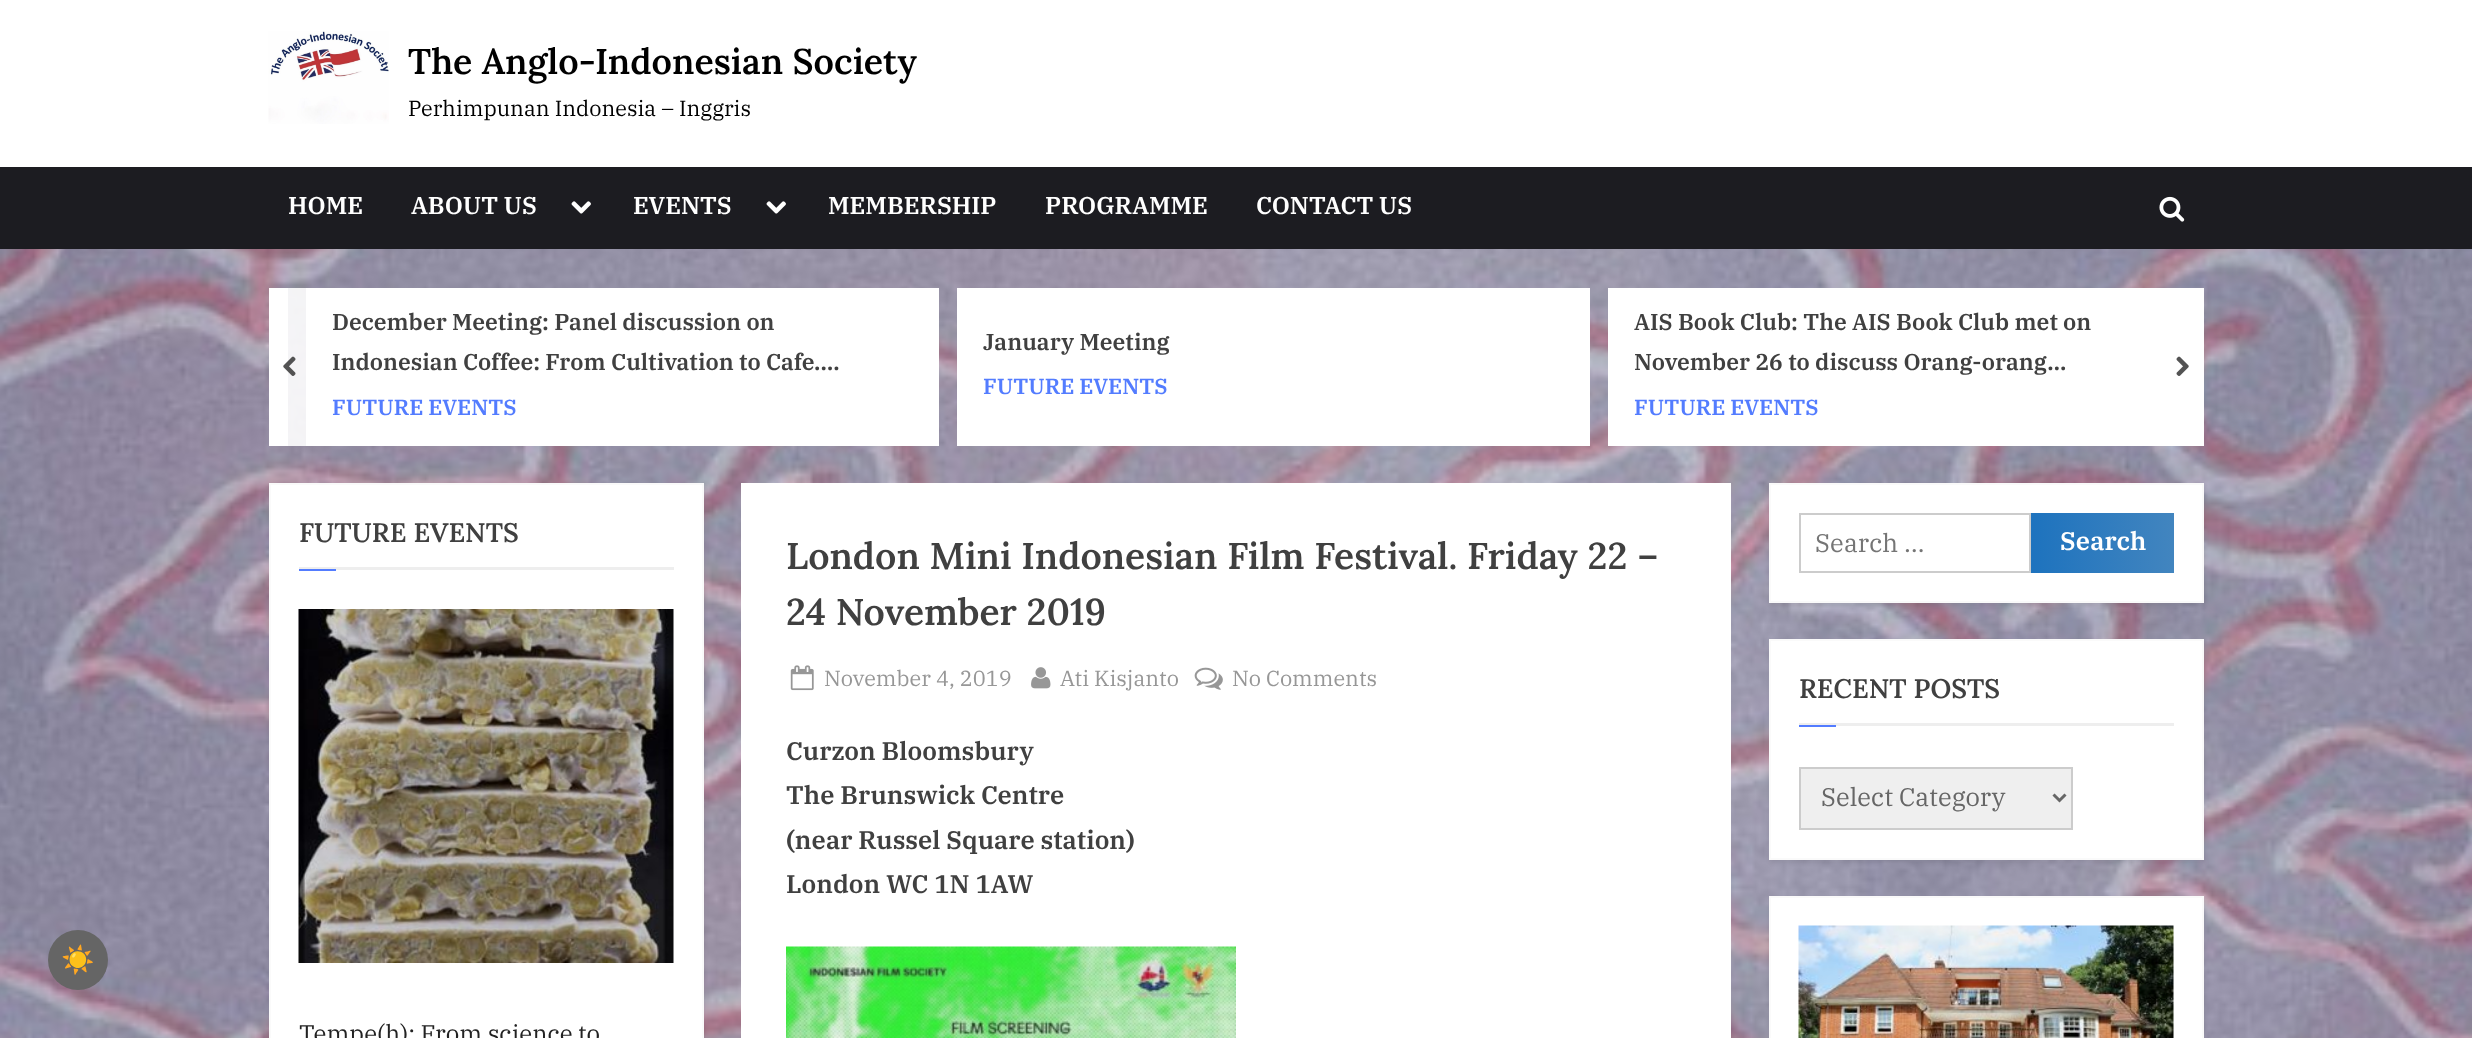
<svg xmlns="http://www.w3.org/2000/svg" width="2472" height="1038">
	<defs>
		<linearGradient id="g1" gradientUnits="userSpaceOnUse" x1="1761" y1="543" x2="2034" y2="543"><stop offset="0" stop-color="#1E73BE" /><stop offset="0.51" stop-color="#4285BF" /><stop offset="1" stop-color="#1E73BE" /></linearGradient>
		<linearGradient id="g2" gradientUnits="userSpaceOnUse" x1="2034" y1="543" x2="2307" y2="543"><stop offset="0" stop-color="#1E73BE" /><stop offset="0.51" stop-color="#4285BF" /><stop offset="1" stop-color="#1E73BE" /></linearGradient>
	</defs>
	<rect width="100%" height="100%" fill="#FFFFFF" />
	<image x="0" y="249" width="2472" height="789" href="assets/img1.png" />
	<circle cx="78" cy="960" r="30" fill="#656565" />
	<text x="61" y="969" font-family="Noto Color Emoji" font-size="27" font-weight="700" fill="#EEEEEE">☀️</text>
	<image x="268" y="31" width="121" height="93" href="assets/img2.png" />
	<text x="408" y="74" font-family="Lora" font-size="35.75" font-weight="600" fill="#000000">The Anglo-Indonesian Society</text>
	<text x="408" y="116" font-family="IBM Plex Serif" font-size="21.7" fill="#000000">Perhimpunan Indonesia – Inggris</text>
	<rect x="0" y="167" width="2472" height="82" fill="#1C1C21" />
	<g font-family="IBM Plex Serif" font-size="24.25" font-weight="600" fill="#FFFFFF">
		<text x="288" y="214">HOME</text>
		<text x="411" y="214">ABOUT US</text>
	</g>
	<image x="571" y="201" width="20" height="13" href="assets/img3.png" />
	<text x="633" y="214" font-family="IBM Plex Serif" font-size="24.25" font-weight="600" fill="#FFFFFF">EVENTS</text>
	<image x="766" y="201" width="20" height="13" href="assets/img3.png" />
	<g font-family="IBM Plex Serif" font-size="24.25" font-weight="600" fill="#FFFFFF">
		<text x="828" y="214">MEMBERSHIP</text>
		<text x="1045" y="214">PROGRAMME</text>
		<text x="1256" y="214">CONTACT US</text>
	</g>
	<image x="2159" y="196" width="26" height="26" href="assets/img4.png" />
	<rect x="288" y="288" width="18" height="158" fill="#FFFFFF" fill-opacity="0.9" />
	<rect x="269" y="288" width="19" height="158" fill="#FFFFFF" />
	<image x="283" y="356" width="13" height="20" href="assets/img5.png" />
	<rect x="1608" y="288" width="596" height="158" fill="#FFFFFF" />
	<image x="2176" y="356" width="13" height="20" href="assets/img6.png" />
	<rect x="306" y="288" width="633" height="158" fill="#FFFFFF" />
	<g font-family="IBM Plex Serif" font-size="22.95" font-weight="600" fill="#404040">
		<text x="332" y="330">December Meeting: Panel discussion on</text>
		<text x="332" y="370">Indonesian Coffee: From Cultivation to Cafe.…</text>
	</g>
	<text x="332" y="415" font-family="IBM Plex Serif" font-size="21.7" font-weight="600" fill="#537CFF">FUTURE EVENTS</text>
	<rect x="957" y="288" width="633" height="158" fill="#FFFFFF" />
	<text x="983" y="350" font-family="IBM Plex Serif" font-size="22.95" font-weight="600" fill="#404040">January Meeting</text>
	<text x="983" y="394" font-family="IBM Plex Serif" font-size="21.7" font-weight="600" fill="#537CFF">FUTURE EVENTS</text>
	<g font-family="IBM Plex Serif" font-size="22.95" font-weight="600" fill="#404040">
		<text x="1634" y="330">AIS Book Club: The AIS Book Club met on</text>
		<text x="1634" y="370">November 26 to discuss Orang-orang…</text>
	</g>
	<text x="1634" y="415" font-family="IBM Plex Serif" font-size="21.7" font-weight="600" fill="#537CFF">FUTURE EVENTS</text>
	<rect x="270" y="486" width="435" height="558" fill="#000000" fill-opacity="0.07" filter="blur(2px)" />
	<rect x="270" y="484" width="433" height="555" fill="#FFFFFF" stroke="#FAFAFA" stroke-width="2" />
	<rect x="299" y="567" width="375" height="3" fill="#EEEEEE" />
	<text x="299" y="542" font-family="Lora" font-size="26.75" font-weight="600" fill="#404040">FUTURE EVENTS</text>
	<rect x="299" y="569" width="37" height="2" fill="#537CFF" />
	<image x="298" y="609" width="376" height="354" href="assets/img7.png" />
	<text x="299" y="1042" font-family="IBM Plex Serif" font-size="24" fill="#222222">Tempe(h): From science to</text>
	<rect x="741" y="483" width="990" height="555" fill="#FFFFFF" />
	<g font-family="Lora" font-size="37.25" font-weight="600" fill="#404040">
		<text x="786" y="569">London Mini Indonesian Film Festival. Friday 22 –</text>
		<text x="786" y="625">24 November 2019</text>
	</g>
	<image x="790" y="665" width="24" height="26" href="assets/img8.png" />
	<text x="824" y="686" font-family="IBM Plex Serif" font-size="21.7" fill="#979797">November 4, 2019</text>
	<image x="1031" y="667" width="20" height="22" href="assets/img9.png" />
	<text x="1060" y="686" font-family="IBM Plex Serif" font-size="21.7" fill="#979797">Ati Kisjanto</text>
	<image x="1194" y="667" width="29" height="23" href="assets/img10.png" />
	<text x="1232" y="686" font-family="IBM Plex Serif" font-size="21.7" fill="#979797">No Comments</text>
	<g font-family="IBM Plex Serif" font-size="25.5" font-weight="600" fill="#404040">
		<text x="786" y="760">Curzon Bloomsbury</text>
		<text x="786" y="804">The Brunswick Centre</text>
		<text x="786" y="849">(near Russel Square station)</text>
		<text x="786" y="893">London WC 1N 1AW</text>
	</g>
	<image x="786" y="946" width="450" height="92" href="assets/img11.png" />
	<rect x="1770" y="486" width="435" height="120" fill="#000000" fill-opacity="0.07" filter="blur(2px)" />
	<rect x="1770" y="484" width="433" height="118" fill="#FFFFFF" stroke="#FAFAFA" stroke-width="2" />
	<rect x="1800" y="514" width="230" height="58" fill="none" stroke="#CCCCCC" stroke-width="2" />
	<text x="1815" y="552" font-family="IBM Plex Serif" font-size="25.5" fill="#757575">Search …</text>
	<rect x="2031" y="513" width="3" height="60" fill="url(#g1)" />
	<rect x="2034" y="513" width="140" height="60" fill="url(#g2)" />
	<text x="2060" y="550" font-family="IBM Plex Serif" font-size="25.5" font-weight="600" fill="#FFFFFF">Search</text>
	<rect x="1770" y="642" width="435" height="221" fill="#000000" fill-opacity="0.07" filter="blur(2px)" />
	<rect x="1770" y="640" width="433" height="219" fill="#FFFFFF" stroke="#FAFAFA" stroke-width="2" />
	<rect x="1799" y="723" width="375" height="3" fill="#EEEEEE" />
	<text x="1799" y="698" font-family="Lora" font-size="26.75" font-weight="600" fill="#404040">RECENT POSTS</text>
	<rect x="1799" y="725" width="37" height="2" fill="#537CFF" />
	<rect x="1800" y="768" width="272" height="61" fill="#EFEFEF" stroke="#CCCCCC" stroke-width="2" />
	<path d="M2053.5 794.5L2059.5 800.5L2065.5 794.5" fill="none" stroke="#666666" stroke-width="3" />
	<text x="1821" y="806" font-family="IBM Plex Serif" font-size="25.5" fill="#666666">Select Category</text>
	<rect x="1770" y="899" width="435" height="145" fill="#000000" fill-opacity="0.07" filter="blur(2px)" />
	<rect x="1770" y="897" width="433" height="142" fill="#FFFFFF" stroke="#FAFAFA" stroke-width="2" />
	<image x="1798" y="925" width="376" height="113" href="assets/img12.png" />
</svg>
